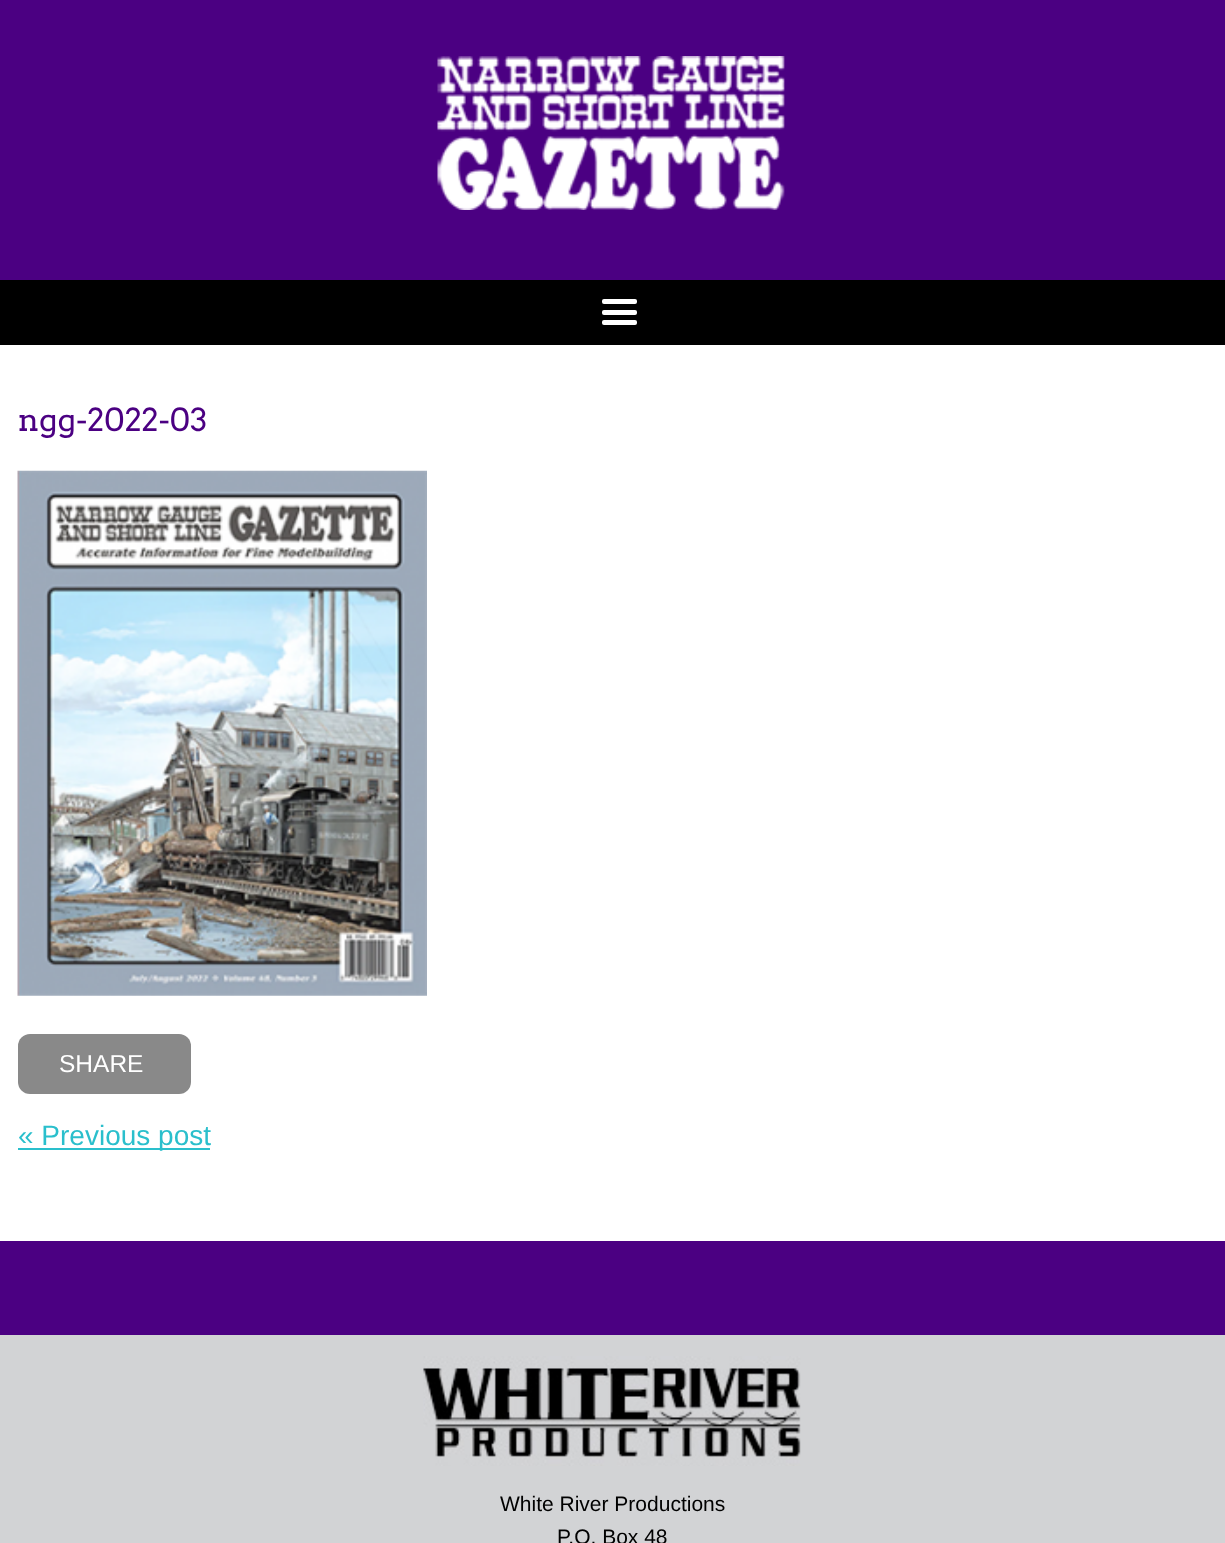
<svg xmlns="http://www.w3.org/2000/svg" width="1225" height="1543">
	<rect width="100%" height="100%" fill="#000000" />
	<rect x="0" y="0" width="1225" height="280" fill="#4B0082" />
	<image x="437" y="56" width="348" height="154" href="assets/img1.png" />
	<rect x="602" y="299" width="35" height="5" rx="2" fill="#FFFFFF" />
	<rect x="602" y="310" width="35" height="5" rx="2" fill="#FFFFFF" />
	<rect x="602" y="320" width="35" height="5" rx="2" fill="#FFFFFF" />
	<rect x="0" y="1241" width="1225" height="94" fill="#4B0082" />
	<rect x="0" y="345" width="1225" height="896" fill="#FFFFFF" />
	<text x="18" y="431" font-family="Arvo" font-size="31.5" fill="#4B0082">ngg-2022-03</text>
	<image x="17" y="470" width="410" height="526" href="assets/img2.png" />
	<rect x="18" y="1034" width="173" height="60" rx="12" fill="#898989" />
	<text x="59" y="1072" font-family="Liberation Sans" font-size="24.5" fill="#FFFFFF">SHARE</text>
	<rect x="18" y="1148" width="192" height="2" fill="#2ABFCC" />
	<text x="18" y="1145" font-family="Liberation Sans" font-size="28" fill="#2ABFCC">« Previous post</text>
	<rect x="0" y="1335" width="1225" height="208" fill="#D2D3D5" />
	<image x="423" y="1356" width="378" height="110" href="assets/img3.png" />
	<g font-family="Liberation Sans" font-size="21" fill="#000000">
		<text x="500" y="1511">White River Productions</text>
		<text x="557" y="1544">P.O. Box 48</text>
	</g>
</svg>
